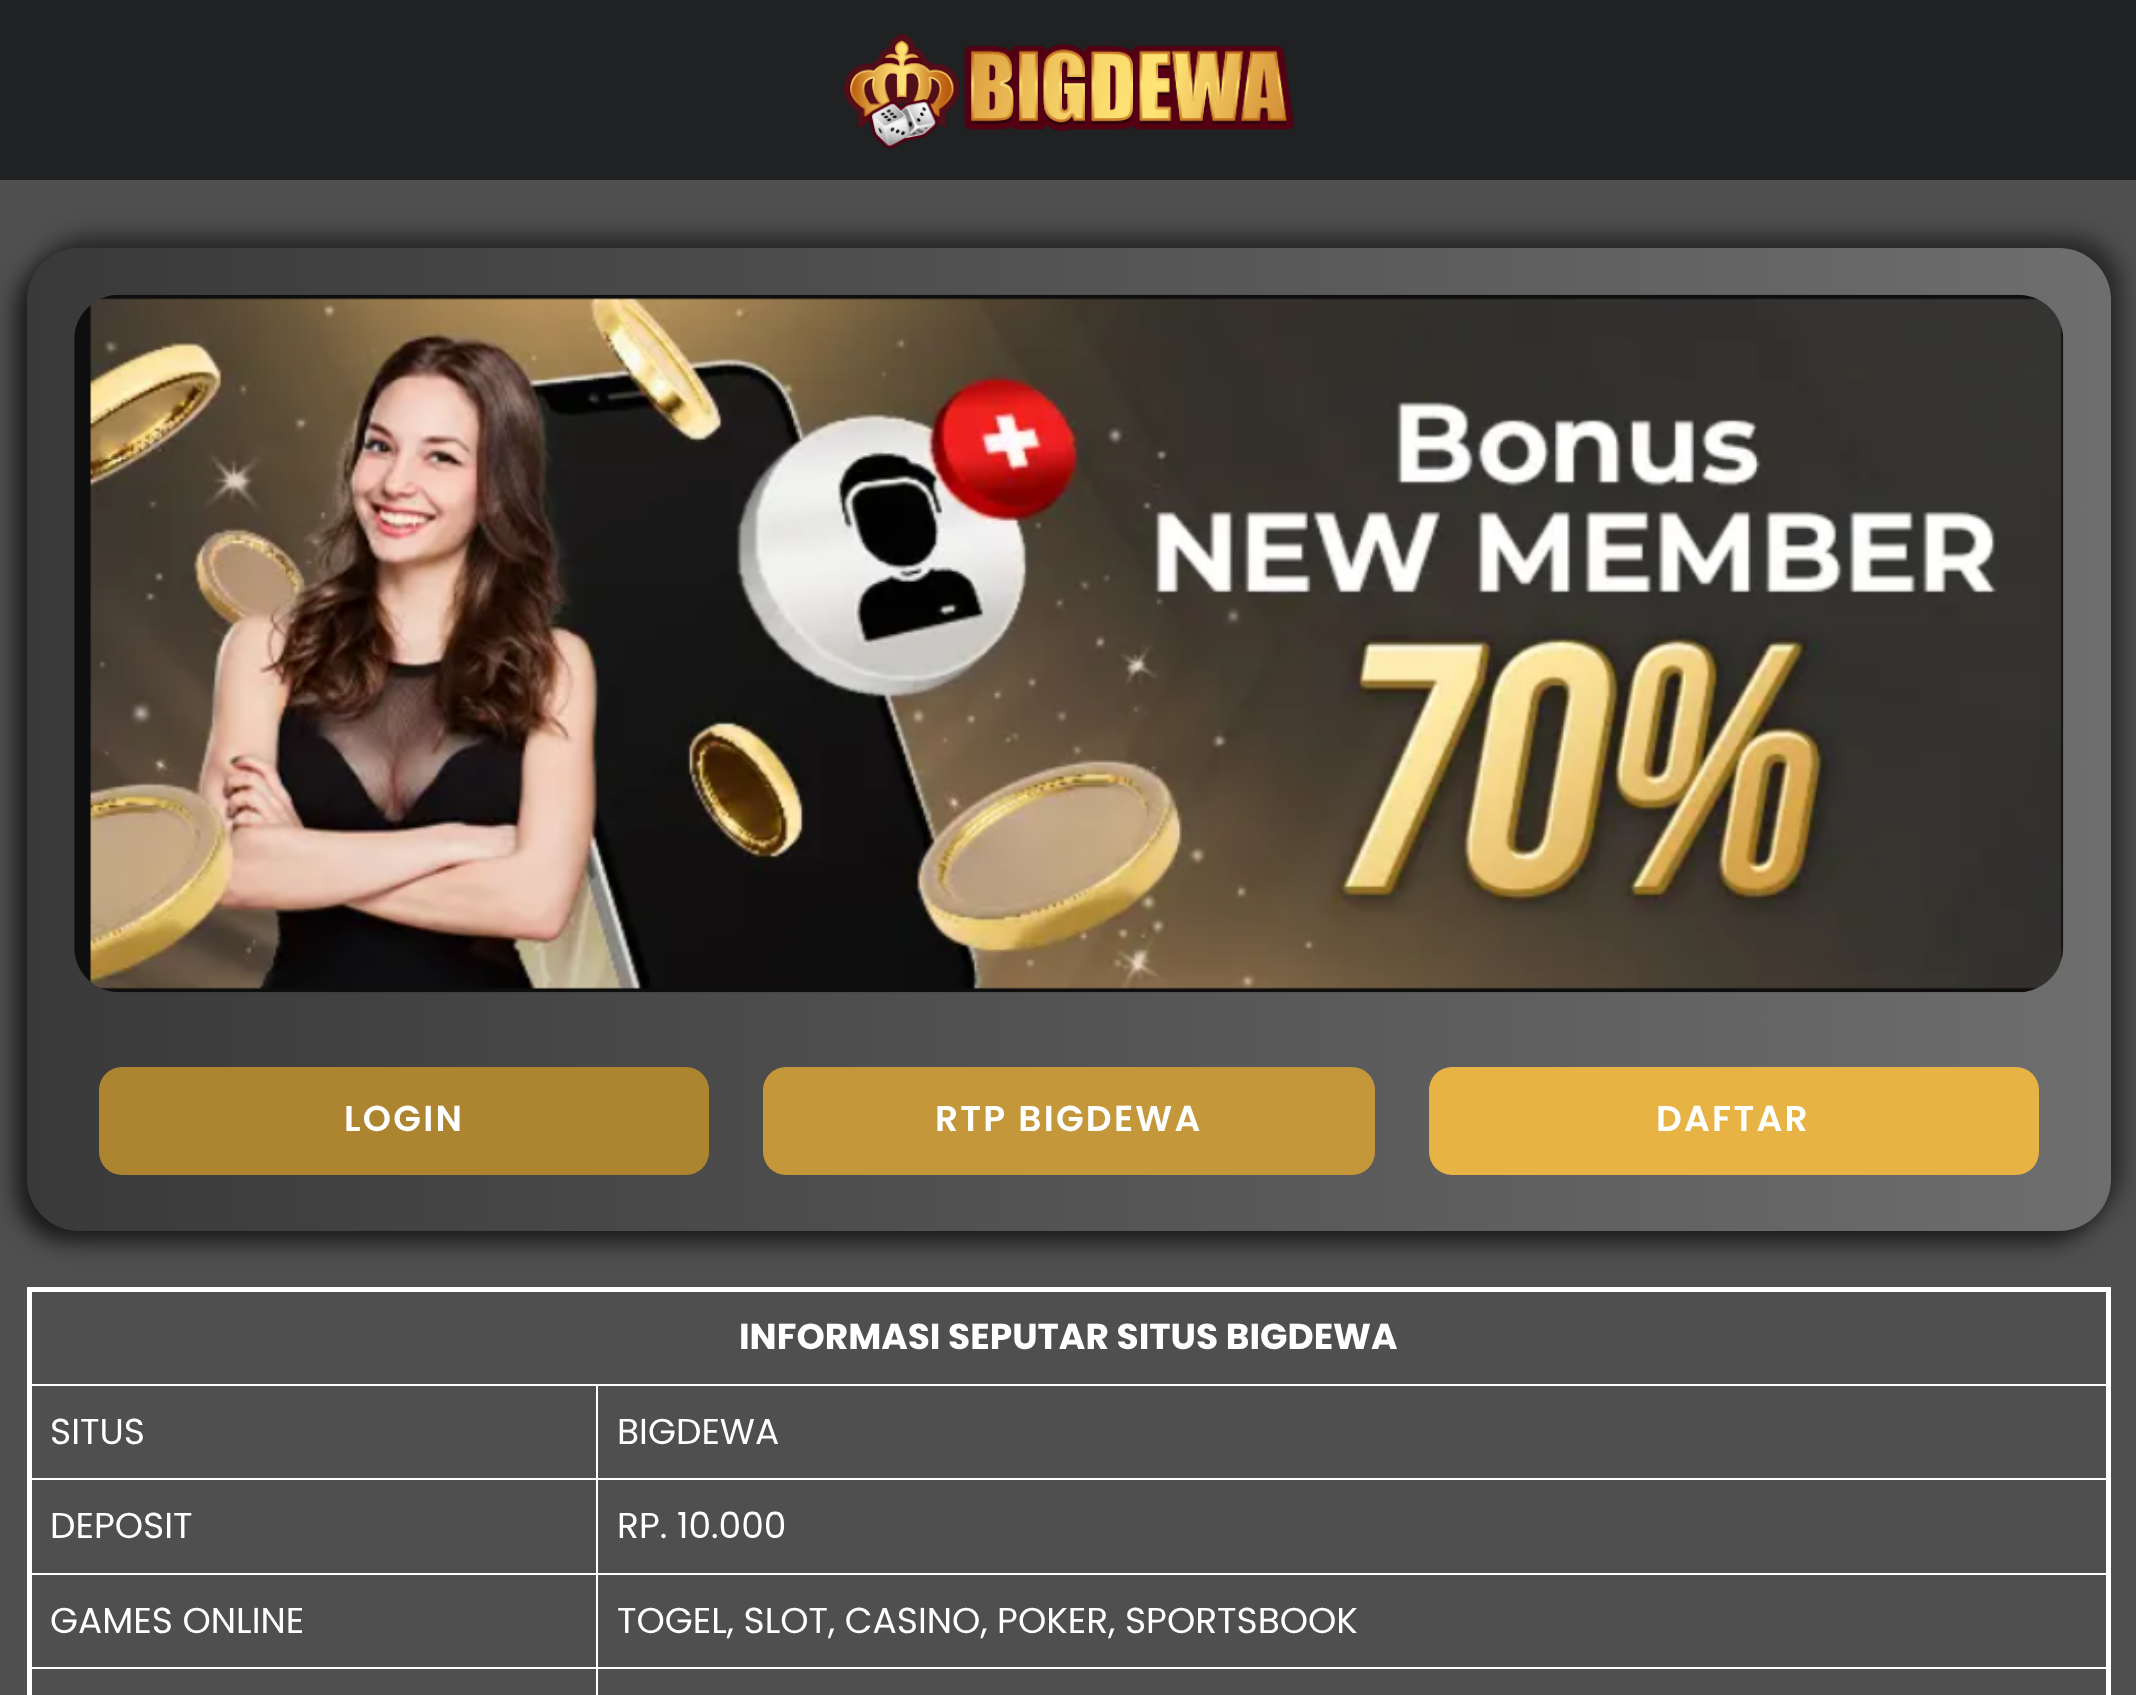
<svg xmlns="http://www.w3.org/2000/svg" width="2136" height="1695">
	<defs>
		<linearGradient id="g1" gradientUnits="userSpaceOnUse" x1="27" y1="739" x2="2111" y2="739"><stop offset="0" stop-color="#393939" /><stop offset="1" stop-color="#6E6E6E" /></linearGradient>
	</defs>
	<rect width="100%" height="100%" fill="#4F4F4F" />
	<rect x="0" y="0" width="2136" height="180" fill="#1F2122" />
	<image x="843" y="33" width="451" height="116" href="assets/img1.png" />
	<rect x="38" y="236" width="2084" height="984" rx="52" fill="#292929" filter="blur(11px)" />
	<rect x="16" y="259" width="2083" height="983" rx="52" fill="#191919" filter="blur(11px)" />
	<rect x="27" y="248" width="2084" height="983" rx="52" fill="url(#g1)" />
	<image x="74" y="294" width="1990" height="699" href="assets/img2.png" />
	<rect x="99" y="1067" width="610" height="108" rx="23" fill="#AD8430" />
	<text x="344" y="1131" font-family="Poppins" font-size="36" font-weight="600" letter-spacing="2.25" fill="#FFFFFF">LOGIN</text>
	<rect x="763" y="1067" width="612" height="108" rx="23" fill="#C4973A" />
	<text x="935" y="1131" font-family="Poppins" font-size="36" font-weight="600" letter-spacing="2.25" fill="#FFFFFF">RTP BIGDEWA</text>
	<rect x="1429" y="1067" width="610" height="108" rx="23" fill="#E8B345" />
	<text x="1656" y="1131" font-family="Poppins" font-size="36" font-weight="600" letter-spacing="2.25" fill="#FFFFFF">DAFTAR</text>
	<rect x="27" y="1287" width="2084" height="5" fill="#FFFFFF" />
	<rect x="596" y="1384" width="1515" height="2" fill="#FFFFFF" />
	<rect x="596" y="1478" width="1515" height="2" fill="#FFFFFF" />
	<rect x="596" y="1573" width="1515" height="2" fill="#FFFFFF" />
	<rect x="596" y="1667" width="1515" height="2" fill="#FFFFFF" />
	<rect x="2106" y="1287" width="5" height="408" fill="#FFFFFF" />
	<rect x="596" y="1667" width="2" height="28" fill="#FFFFFF" />
	<rect x="29" y="1667" width="570" height="2" fill="#FFFFFF" />
	<rect x="596" y="1573" width="2" height="97" fill="#FFFFFF" />
	<rect x="29" y="1573" width="570" height="2" fill="#FFFFFF" />
	<rect x="596" y="1478" width="2" height="97" fill="#FFFFFF" />
	<rect x="29" y="1478" width="570" height="2" fill="#FFFFFF" />
	<rect x="596" y="1384" width="2" height="97" fill="#FFFFFF" />
	<rect x="29" y="1384" width="570" height="2" fill="#FFFFFF" />
	<rect x="27" y="1287" width="5" height="408" fill="#FFFFFF" />
	<text x="739" y="1349" font-family="Poppins" font-size="36" font-weight="700" fill="#FFFFFF">INFORMASI SEPUTAR SITUS BIGDEWA</text>
	<g font-family="Poppins" font-size="36" fill="#FFFFFF">
		<text x="50" y="1444">SITUS</text>
		<text x="617" y="1444">BIGDEWA</text>
		<text x="50" y="1538">DEPOSIT</text>
		<text x="617" y="1538">RP. 10.000</text>
		<text x="50" y="1633">GAMES ONLINE</text>
		<text x="617" y="1633">TOGEL, SLOT, CASINO, POKER, SPORTSBOOK</text>
	</g>
</svg>
